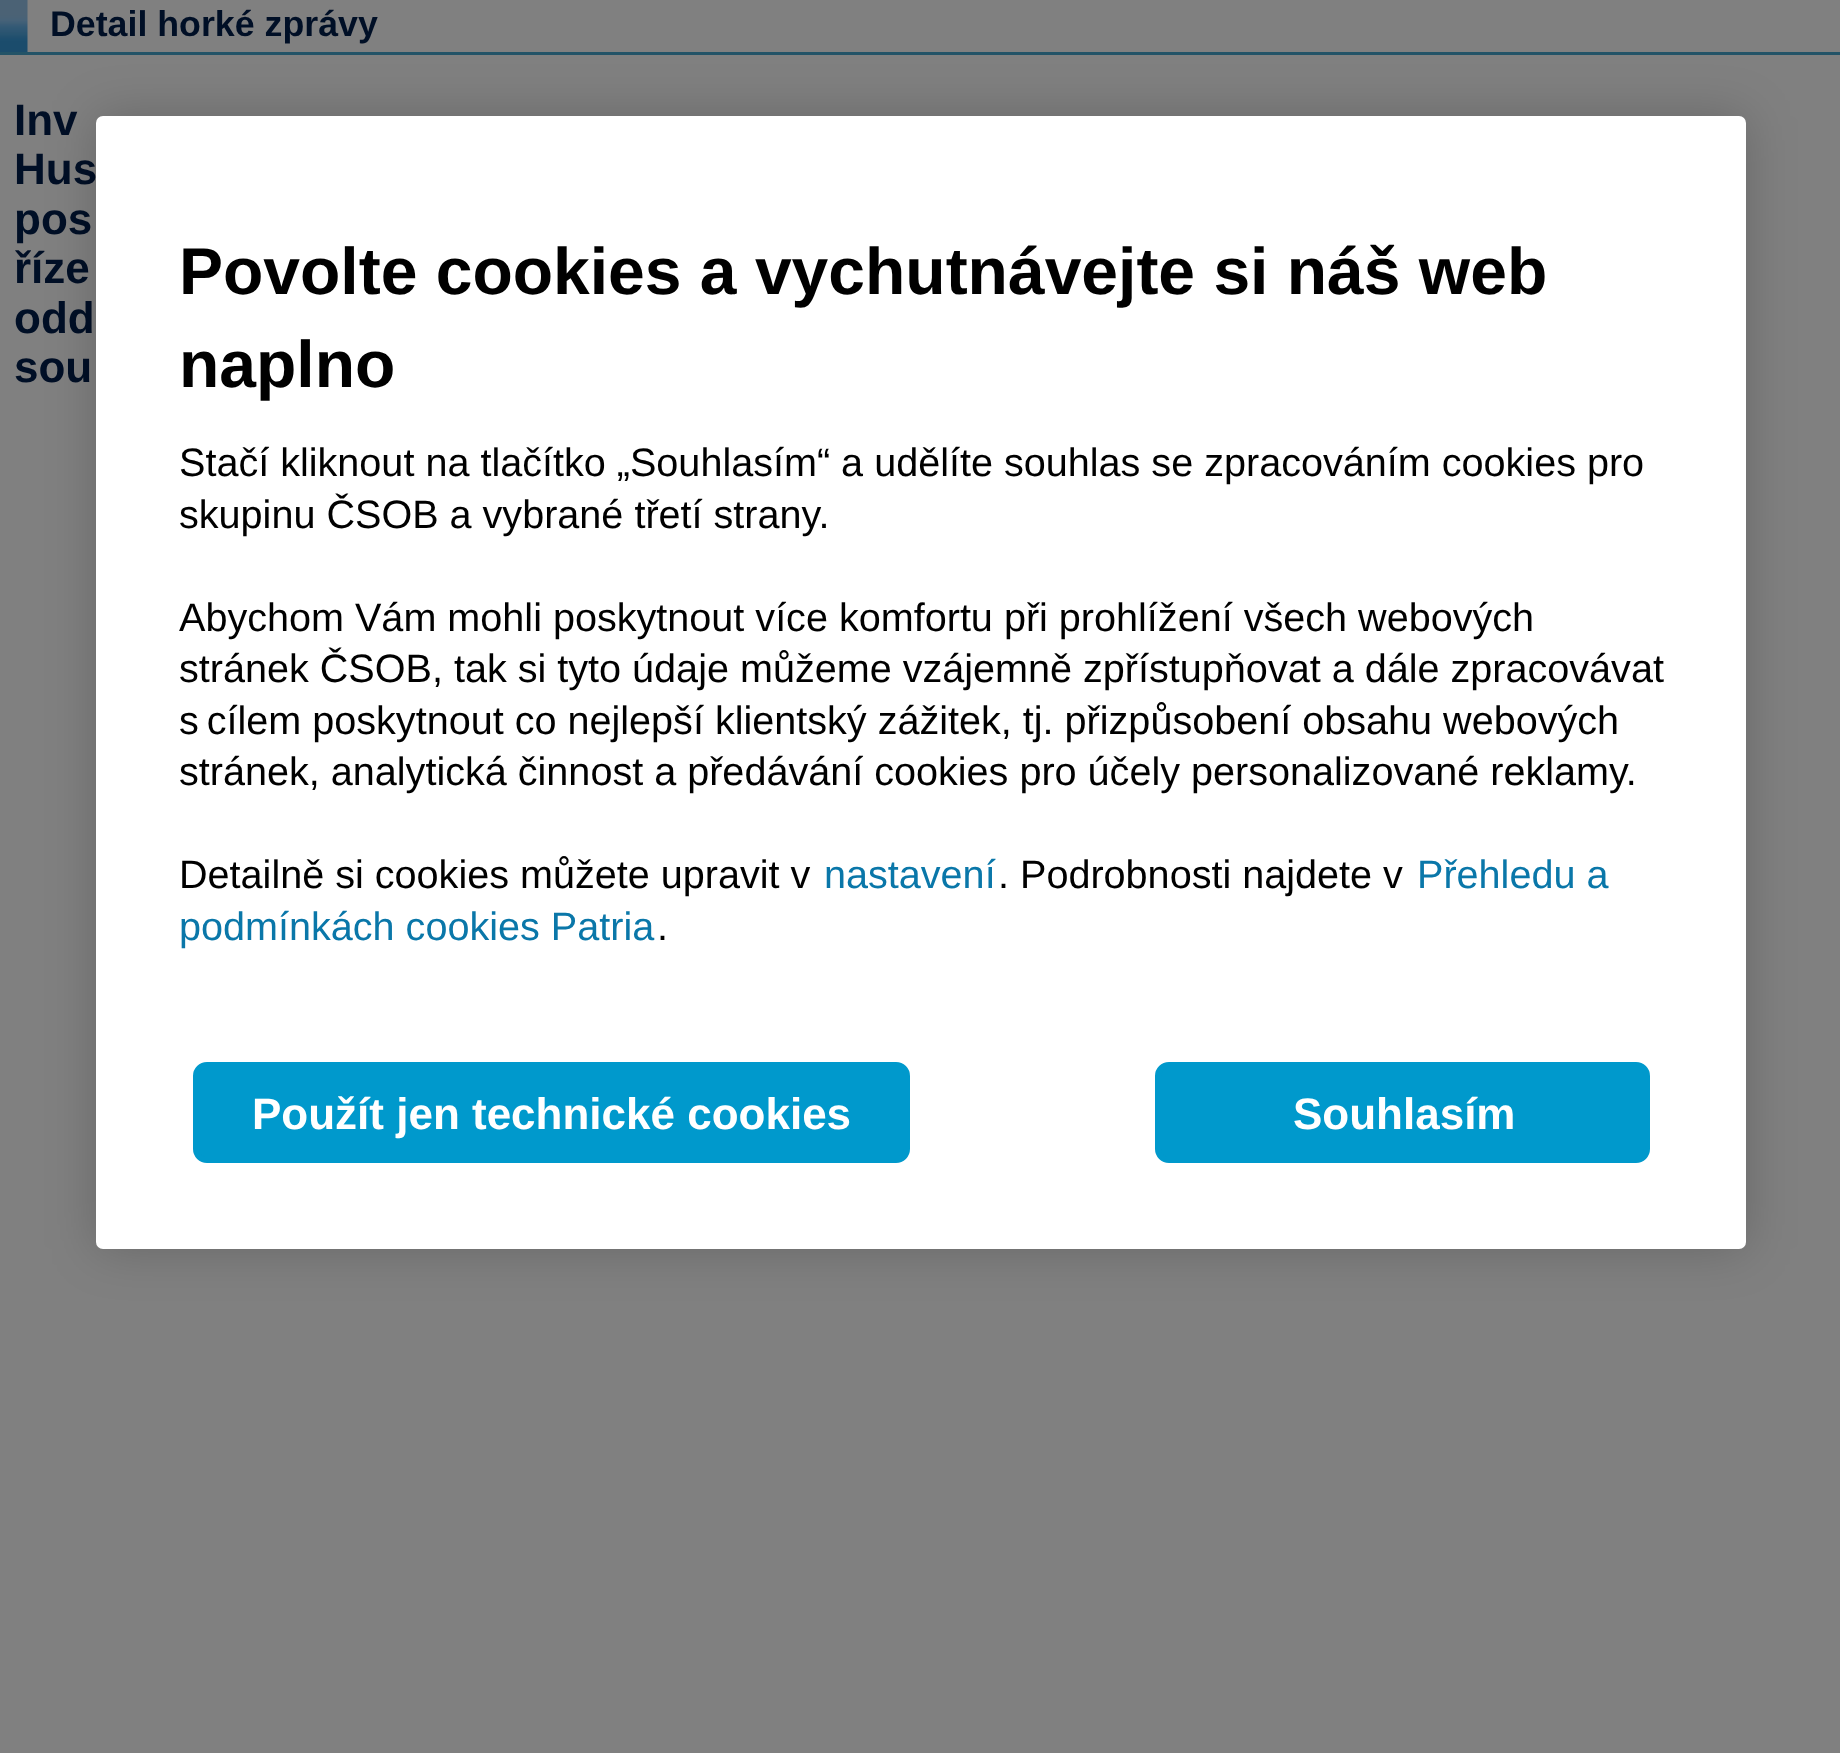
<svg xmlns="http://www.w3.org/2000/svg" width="1840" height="1753">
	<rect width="100%" height="100%" fill="#808080" />
	<image x="0" y="0" width="28" height="52" href="assets/img1.png" />
	<rect x="0" y="52" width="1840" height="3" fill="#235367" />
	<text x="50" y="36" font-family="Liberation Sans" font-size="35.75" font-weight="700" fill="#000F26">Detail horké zprávy</text>
	<g font-family="Liberation Sans" font-size="44" font-weight="700" fill="#000F26">
		<text x="14" y="135">Inv</text>
		<text x="14" y="184">Hus</text>
		<text x="14" y="234">pos</text>
		<text x="14" y="283">říze</text>
		<text x="14" y="333">odd</text>
		<text x="14" y="382">sou</text>
	</g>
	<rect x="96" y="116" width="1650" height="1133" rx="7" fill="#000000" fill-opacity="0.2" filter="blur(25px)" />
	<rect x="96" y="116" width="1650" height="1133" rx="7" fill="#FFFFFF" />
	<g font-family="Liberation Sans" font-size="66" font-weight="700" fill="#000000">
		<text x="179" y="294">Povolte cookies a vychutnávejte si náš web</text>
		<text x="179" y="387">naplno</text>
	</g>
	<g font-family="Liberation Sans" font-size="39.6" fill="#000000">
		<text x="179" y="476">Stačí kliknout na tlačítko „Souhlasím“ a udělíte souhlas se zpracováním cookies pro</text>
		<text x="179" y="528">skupinu ČSOB a vybrané třetí strany.</text>
		<text x="179" y="631">Abychom Vám mohli poskytnout více komfortu při prohlížení všech webových</text>
		<text x="179" y="682">stránek ČSOB, tak si tyto údaje můžeme vzájemně zpřístupňovat a dále zpracovávat</text>
		<text x="179" y="734">s cílem poskytnout co nejlepší klientský zážitek, tj. přizpůsobení obsahu webových</text>
		<text x="179" y="785">stránek, analytická činnost a předávání cookies pro účely personalizované reklamy.</text>
		<text x="179" y="888">Detailně si cookies můžete upravit v</text>
	</g>
	<text x="824" y="888" font-family="Liberation Sans" font-size="39.6" fill="#0A77A9">nastavení</text>
	<text x="998" y="888" font-family="Liberation Sans" font-size="39.6" fill="#000000">. Podrobnosti najdete v</text>
	<g font-family="Liberation Sans" font-size="39.6" fill="#0A77A9">
		<text x="1417" y="888">Přehledu a</text>
		<text x="179" y="940">podmínkách cookies Patria</text>
	</g>
	<text x="657" y="940" font-family="Liberation Sans" font-size="39.6" fill="#000000">.</text>
	<rect x="196" y="1065" width="711" height="95" rx="11" fill="#0099CC" stroke="#0099CC" stroke-width="6" />
	<text x="252" y="1129" font-family="Liberation Sans" font-size="44" font-weight="700" fill="#FFFFFF">Použít jen technické cookies</text>
	<rect x="1158" y="1065" width="489" height="95" rx="11" fill="#0099CC" stroke="#0099CC" stroke-width="6" />
	<text x="1293" y="1129" font-family="Liberation Sans" font-size="44" font-weight="700" fill="#FFFFFF">Souhlasím</text>
</svg>
